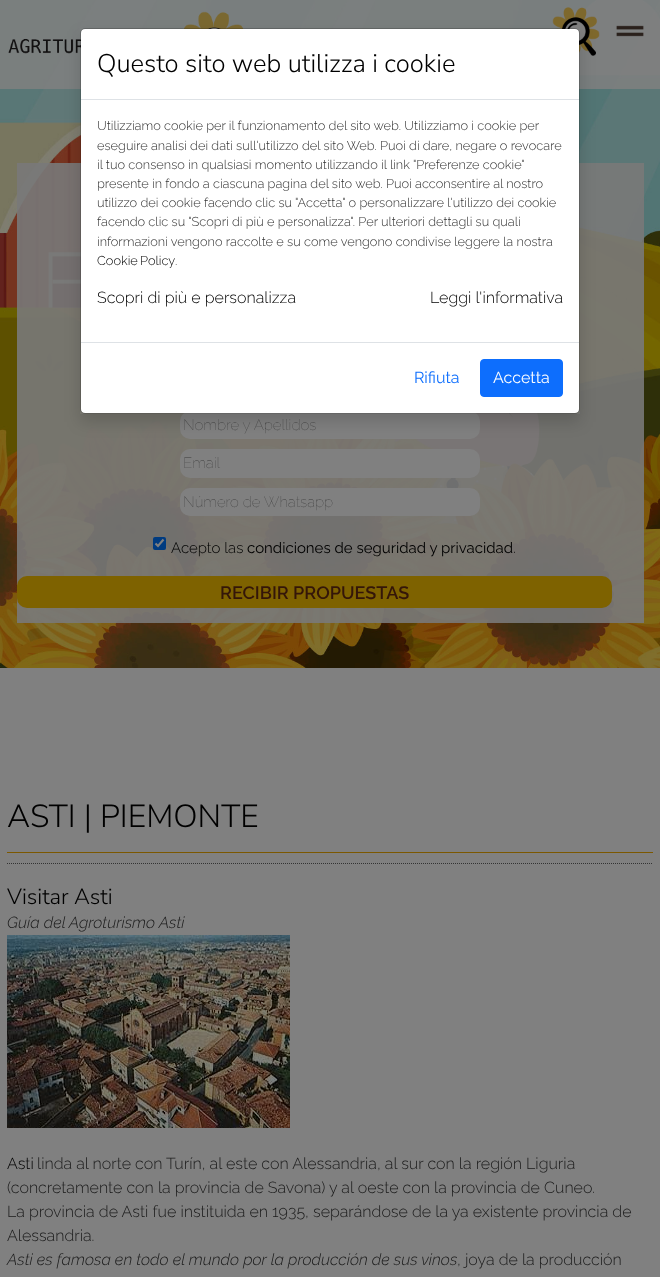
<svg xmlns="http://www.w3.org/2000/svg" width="660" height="1277">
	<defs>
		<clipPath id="clip1"><path d="M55 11H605V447H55ZM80 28H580V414H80Z" clip-rule="evenodd" /></clipPath>
	</defs>
	<rect width="100%" height="100%" fill="#808080" />
	<image x="0" y="0" width="660" height="668" href="assets/img4.png" />
	<rect x="0" y="0" width="660" height="89" fill="#808080" fill-opacity="0.85" />
	<image x="8" y="11" width="236" height="43" href="assets/img1.png" />
	<image x="552" y="7" width="48" height="49" href="assets/img2.png" />
	<image x="616" y="25" width="28" height="12" href="assets/img3.png" />
	<rect x="17" y="163" width="627" height="460" fill="#797979" fill-opacity="0.9" />
	<rect x="180" y="411" width="300" height="28" rx="10" fill="#808080" />
	<g clip-path="url(#clip1)">
		<rect x="80" y="36" width="500" height="386" fill="#000000" fill-opacity="0.15" filter="blur(8px)" />
	</g>
	<rect x="81" y="29" width="498" height="384" rx="4" fill="#FFFFFF" />
	<rect x="80.5" y="28.5" width="499" height="385" rx="4.5" fill="none" stroke="#000000" stroke-opacity="0.2" />
	<rect x="81" y="99" width="498" height="1" fill="#DEE2E6" />
	<text x="97" y="72" font-family="Nunito Sans" font-size="25.6" font-weight="300" fill="#000000">Questo sito web utilizza i cookie</text>
	<g font-family="Raleway" font-size="12.8" font-weight="300" fill="#333333">
		<text x="97" y="130">Utilizziamo cookie per il funzionamento del sito web. Utilizziamo i cookie per</text>
		<text x="97" y="150">eseguire analisi dei dati sull'utilizzo del sito Web. Puoi di dare, negare o revocare</text>
		<text x="97" y="169">il tuo consenso in qualsiasi momento utilizzando il link "Preferenze cookie"</text>
		<text x="97" y="188">presente in fondo a ciascuna pagina del sito web. Puoi acconsentire al nostro</text>
		<text x="97" y="207">utilizzo dei cookie facendo clic su "Accetta" o personalizzare l'utilizzo dei cookie</text>
		<text x="97" y="226">facendo clic su "Scopri di più e personalizza". Per ulteriori dettagli su quali</text>
		<text x="97" y="246">informazioni vengono raccolte e su come vengono condivise leggere la nostra</text>
	</g>
	<text x="97" y="265" word-spacing="-1" font-family="Raleway" font-size="12.8" font-weight="300" fill="#000000">Cookie Policy</text>
	<text x="175" y="265" font-family="Raleway" font-size="12.8" font-weight="300" fill="#333333">.</text>
	<g font-family="Raleway" font-size="16" font-weight="300" fill="#000000">
		<text x="97" y="303">Scopri di più e personalizza</text>
		<text x="430" y="303">Leggi l'informativa</text>
	</g>
	<rect x="81" y="342" width="498" height="1" fill="#DEE2E6" />
	<text x="414" y="383" font-family="Raleway" font-size="16" fill="#0D6EFD">Rifiuta</text>
	<rect x="480.5" y="359.5" width="82" height="37" rx="3.5" fill="#0D6EFD" stroke="#0D6EFD" />
	<text x="493" y="383" font-family="Raleway" font-size="16" fill="#FFFFFF">Accetta</text>
	<text x="183" y="430" font-family="Raleway" font-size="15" font-weight="100" fill="#3B3B3B">Nombre y Apellidos</text>
	<rect x="180" y="449" width="300" height="29" rx="10" fill="#808080" />
	<text x="183" y="468" font-family="Raleway" font-size="15" font-weight="100" fill="#3B3B3B">Email</text>
	<rect x="180" y="488" width="300" height="28" rx="10" fill="#808080" />
	<text x="183" y="507" font-family="Raleway" font-size="15" font-weight="100" fill="#3B3B3B">Número de Whatsapp</text>
	<rect x="153" y="537" width="13" height="13" rx="2" fill="#003B80" />
	<path d="M155.5 543.5L158 546L163.5 539.5" fill="none" stroke="#808080" stroke-width="2.1" />
	<text x="171" y="553" font-family="Raleway" font-size="15" font-weight="300" fill="#000000">Acepto las</text>
	<text x="247" y="553" font-family="Raleway" font-size="15" fill="#000000">condiciones de seguridad y privacidad</text>
	<text x="513" y="553" font-family="Raleway" font-size="15" font-weight="300" fill="#000000">.</text>
	<rect x="17" y="576" width="595" height="32" rx="10" fill="#7E6200" />
	<text x="220" y="599" font-family="Raleway" font-size="18" font-weight="600" fill="#341609">RECIBIR PROPUESTAS</text>
	<text x="7" y="827" font-family="Nunito Sans" font-size="32" font-weight="300" fill="#000000">ASTI | PIEMONTE</text>
	<rect x="7" y="852" width="646" height="1" fill="#7C5800" />
	<path d="M7 863.5H653" fill="none" stroke="#333333" stroke-dasharray="1 1" />
	<text x="7" y="904" font-family="Nunito Sans" font-size="22" font-weight="300" fill="#000000">Visitar Asti</text>
	<text x="7" y="928" font-family="Raleway" font-size="16" font-weight="300" font-style="italic" fill="#1A1A1A">Guía del Agroturismo Asti</text>
	<image x="7" y="935" width="283" height="193" href="assets/img5.png" />
	<text x="7" y="1169" font-family="Raleway" font-size="16" font-weight="300" fill="#000000">Asti</text>
	<g font-family="Raleway" font-size="16" font-weight="300" fill="#1A1A1A">
		<text x="37" y="1169">linda al norte con Turín, al este con Alessandria, al sur con la región Liguria</text>
		<text x="7" y="1193">(concretamente con la provincia de Savona) y al oeste con la provincia de Cuneo.</text>
		<text x="7" y="1217">La provincia de Asti fue instituida en 1935, separándose de la ya existente provincia de</text>
		<text x="7" y="1241">Alessandria.</text>
	</g>
	<text x="7" y="1265" font-family="Raleway" font-size="16" font-weight="300" font-style="italic" fill="#1A1A1A">Asti es famosa en todo el mundo por la producción de sus vinos</text>
	<text x="457" y="1265" font-family="Raleway" font-size="16" font-weight="300" fill="#1A1A1A">, joya de la producción</text>
</svg>
